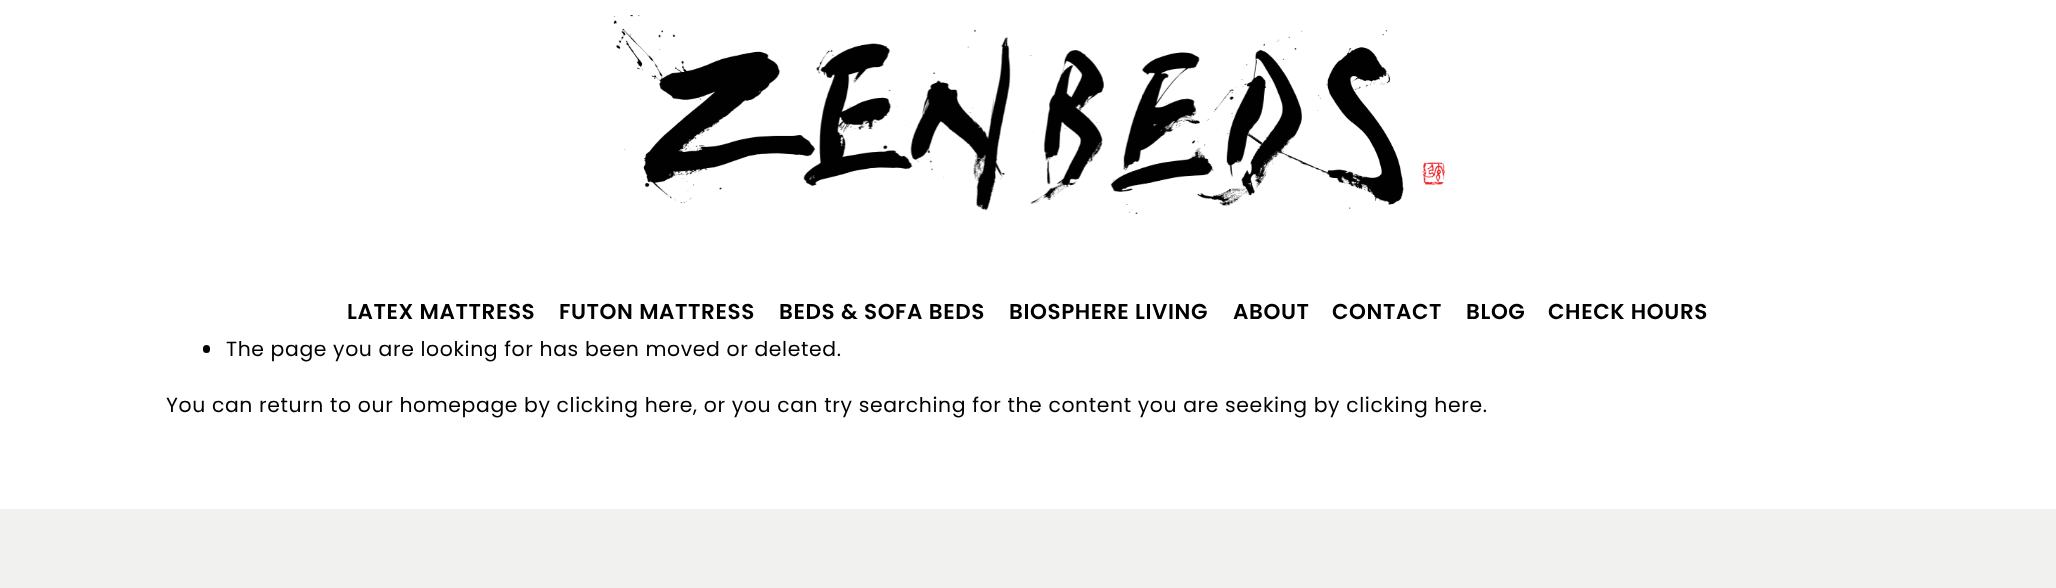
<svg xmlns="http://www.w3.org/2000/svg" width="2056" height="588">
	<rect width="100%" height="100%" fill="#FFFFFF" />
	<image x="613" y="15" width="832" height="199" href="assets/img1.png" />
	<g font-family="Poppins" font-size="21.5" font-weight="600" letter-spacing="0.6" fill="#000000">
		<text x="347" y="319">LATEX MATTRESS</text>
		<text x="559" y="319">FUTON MATTRESS</text>
		<text x="779" y="319">BEDS &amp; SOFA BEDS</text>
		<text x="1009" y="319">BIOSPHERE LIVING</text>
		<text x="1233" y="319">ABOUT</text>
		<text x="1332" y="319">CONTACT</text>
		<text x="1466" y="319">BLOG</text>
		<text x="1548" y="319">CHECK HOURS</text>
	</g>
	<rect x="203" y="345" width="7" height="8" rx="3.5" fill="#000000" />
	<g font-family="Poppins" font-size="20.4" letter-spacing="0.61" fill="#000000">
		<text x="226" y="356">The page you are looking for has been moved or deleted.</text>
		<text x="166" y="412">You can return to our homepage by clicking here, or you can try searching for the content you are seeking by clicking here.</text>
	</g>
	<rect x="0" y="509" width="2056" height="79" fill="#F1F1EF" />
</svg>
